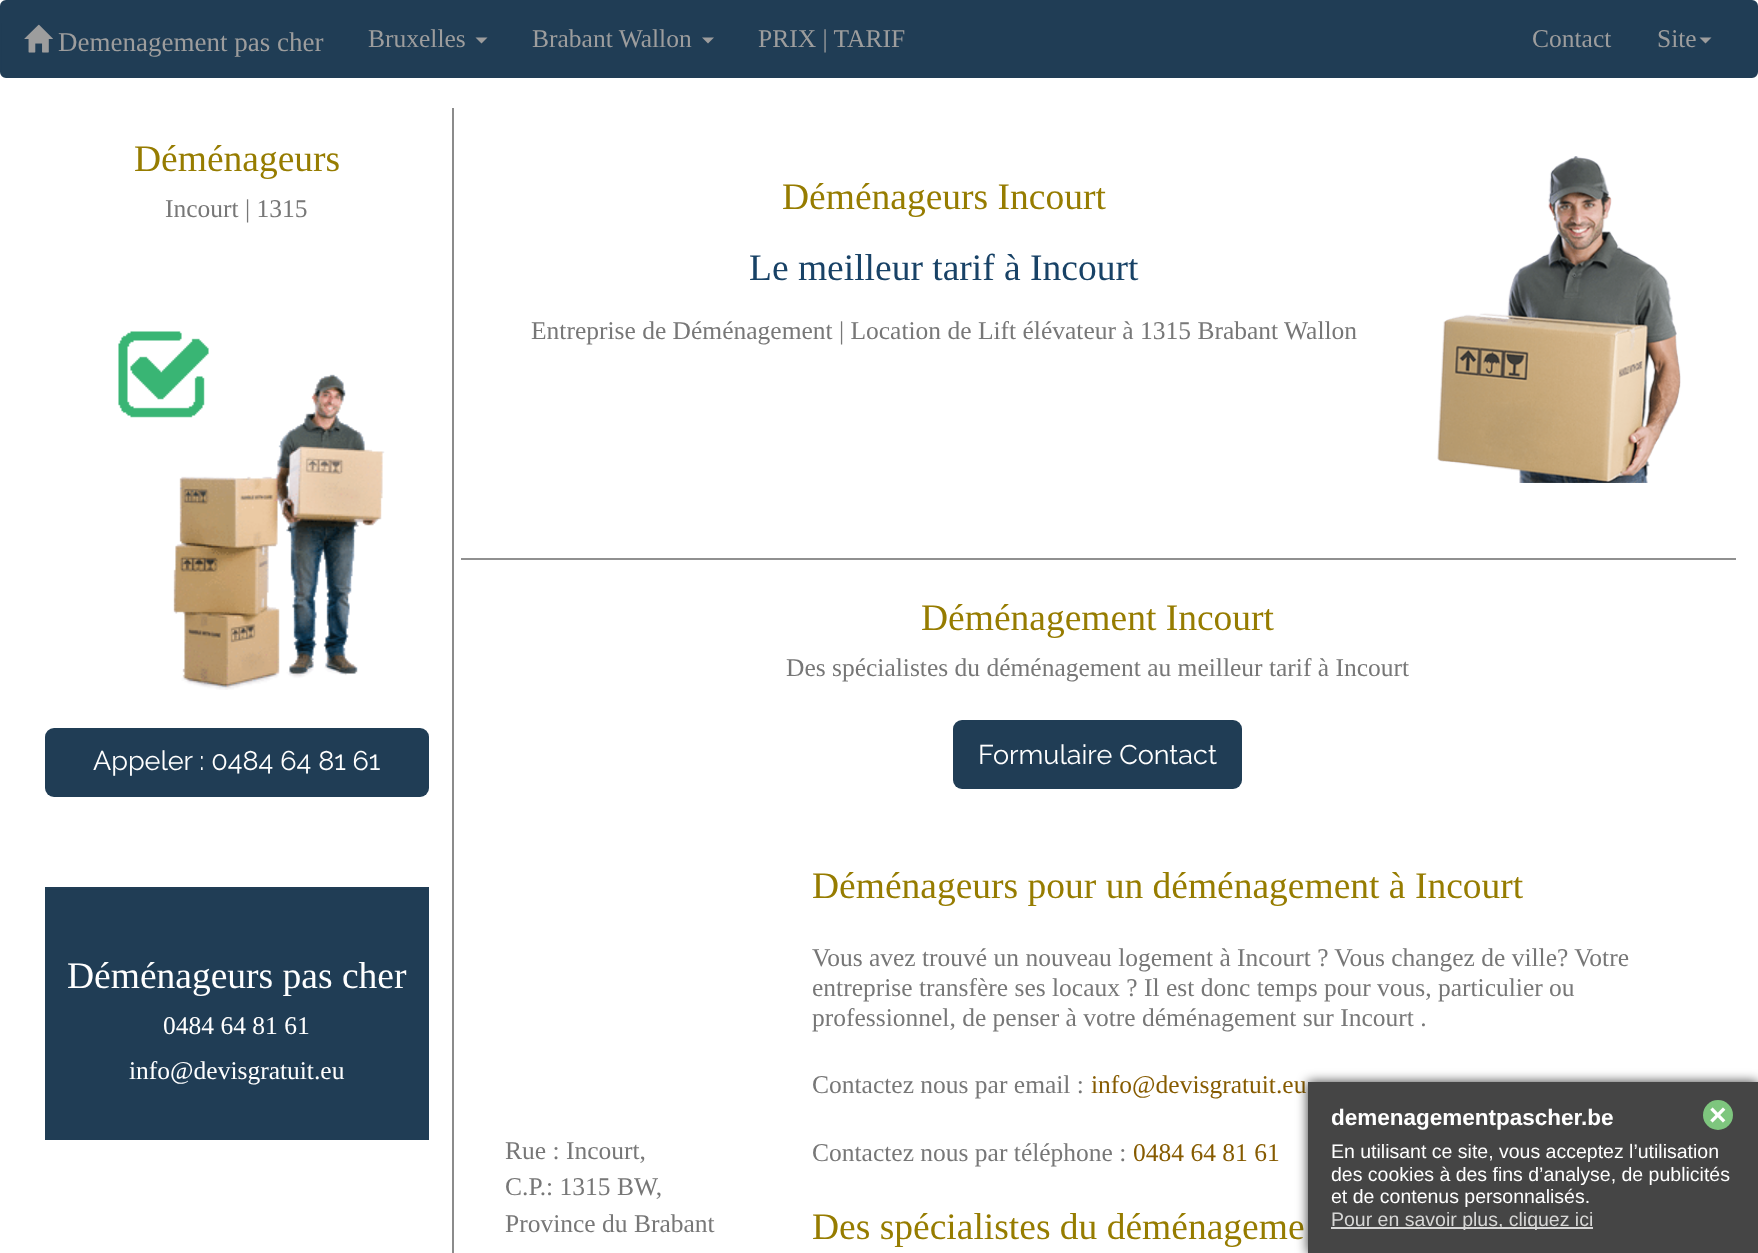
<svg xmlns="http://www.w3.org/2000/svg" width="1758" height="1253">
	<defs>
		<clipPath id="clip1"><path d="M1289 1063H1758V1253H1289ZM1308 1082H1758V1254H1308Z" clip-rule="evenodd" /></clipPath>
	</defs>
	<rect width="100%" height="100%" fill="#FFFFFF" />
	<rect x="1" y="1" width="1756" height="76" rx="5" fill="#203D55" stroke="#203D55" stroke-width="2" />
	<image x="24" y="24" width="29" height="29" href="assets/img1.png" />
	<text x="58" y="51" font-family="Liberation Serif" font-size="27" fill="#9D9D9D">Demenagement pas cher</text>
	<text x="368" y="47" font-family="Liberation Serif" font-size="25.5" fill="#9D9D9D">Bruxelles</text>
	<path d="M475.5 37.5H487.5L481.5 43.5Z" fill="#9D9D9D" />
	<text x="532" y="47" font-family="Liberation Serif" font-size="25.5" fill="#9D9D9D">Brabant Wallon</text>
	<path d="M702 37.5H714L708 43.5Z" fill="#9D9D9D" />
	<g font-family="Liberation Serif" font-size="25.5" fill="#9D9D9D">
		<text x="758" y="47">PRIX | TARIF</text>
		<text x="1532" y="47">Contact</text>
		<text x="1657" y="47">Site</text>
	</g>
	<path d="M1699.5 37.5H1711.5L1705.5 43.5Z" fill="#9D9D9D" />
	<text x="134" y="171" font-family="Liberation Serif" font-size="37.5" fill="#967C00">Déménageurs</text>
	<text x="165" y="217" font-family="Liberation Serif" font-size="25.5" fill="#777777">Incourt | 1315</text>
	<image x="118" y="331" width="267" height="359" href="assets/img2.png" />
	<rect x="45" y="728" width="384" height="69" rx="9" fill="#203D55" />
	<text x="93" y="770" font-family="Raleway" font-size="27" fill="#FFFFFF">Appeler : 0484 64 81 61</text>
	<rect x="47" y="890" width="380" height="248" fill="#203D55" />
	<rect x="47" y="889" width="381" height="1" fill="#1E3A51" />
	<rect x="46" y="888" width="382" height="251" fill="none" stroke="#203D55" stroke-width="2" />
	<text x="67" y="988" font-family="Liberation Serif" font-size="37.5" fill="#FFFFFF">Déménageurs pas cher</text>
	<g font-family="Liberation Serif" font-size="25.5" fill="#FFFFFF">
		<text x="163" y="1034">0484 64 81 61</text>
		<text x="129" y="1079">info@devisgratuit.eu</text>
	</g>
	<rect x="452" y="108" width="2" height="1145" fill="#8B8B8B" />
	<text x="782" y="209" font-family="Liberation Serif" font-size="37.5" fill="#967C00">Déménageurs Incourt</text>
	<text x="749" y="280" font-family="Liberation Serif" font-size="37.5" fill="#184266">Le meilleur tarif à Incourt</text>
	<text x="531" y="339" font-family="Liberation Serif" font-size="25.5" fill="#777777">Entreprise de Déménagement | Location de Lift élévateur à 1315 Brabant Wallon</text>
	<image x="1437" y="156" width="244" height="327" href="assets/img3.png" />
	<rect x="461" y="558" width="1275" height="2" fill="#909090" />
	<text x="921" y="630" font-family="Liberation Serif" font-size="37.5" fill="#967C00">Déménagement Incourt</text>
	<text x="786" y="676" font-family="Liberation Serif" font-size="25.5" fill="#777777">Des spécialistes du déménagement au meilleur tarif à Incourt</text>
	<rect x="953" y="720" width="289" height="69" rx="9" fill="#203D55" />
	<text x="978" y="764" font-family="Raleway" font-size="27" fill="#FFFFFF">Formulaire Contact</text>
	<g font-family="Liberation Serif" font-size="25.5" fill="#777777">
		<text x="505" y="1159">Rue : Incourt,</text>
		<text x="505" y="1195">C.P.: 1315 BW,</text>
		<text x="505" y="1232">Province du Brabant</text>
	</g>
	<text x="812" y="898" font-family="Liberation Serif" font-size="37.5" fill="#967C00">Déménageurs pour un déménagement à Incourt</text>
	<g font-family="Liberation Serif" font-size="25.5" fill="#777777">
		<text x="812" y="966">Vous avez trouvé un nouveau logement à Incourt ? Vous changez de ville? Votre</text>
		<text x="812" y="996">entreprise transfère ses locaux ? Il est donc temps pour vous, particulier ou</text>
		<text x="812" y="1026">professionnel, de penser à votre déménagement sur Incourt .</text>
		<text x="812" y="1093">Contactez nous par email :</text>
	</g>
	<text x="1091" y="1093" font-family="Liberation Serif" font-size="25.5" fill="#865B00">info@devisgratuit.eu</text>
	<text x="812" y="1161" font-family="Liberation Serif" font-size="25.5" fill="#777777">Contactez nous par téléphone :</text>
	<text x="1133" y="1161" font-family="Liberation Serif" font-size="25.5" fill="#865B00">0484 64 81 61</text>
	<text x="812" y="1239" font-family="Liberation Serif" font-size="37.5" fill="#967C00">Des spécialistes du déménageme</text>
	<g clip-path="url(#clip1)">
		<rect x="1308" y="1082" width="450" height="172" fill="#000000" fill-opacity="0.78" filter="blur(6px)" />
	</g>
	<rect x="1308" y="1082" width="450" height="171" fill="#111111" fill-opacity="0.78" />
	<text x="1331" y="1125" font-family="Liberation Sans" font-size="22.5" font-weight="700" fill="#FFFFFF">demenagementpascher.be</text>
	<circle cx="1718" cy="1115" r="15" fill="#7EC67E" />
	<text x="1709" y="1125" font-family="Liberation Sans" font-size="30" font-weight="700" fill="#FFFFFF">×</text>
	<g font-family="Liberation Sans" font-size="19.5" fill="#FFFFFF">
		<text x="1331" y="1158">En utilisant ce site, vous acceptez l’utilisation</text>
		<text x="1331" y="1181">des cookies à des fins d’analyse, de publicités</text>
		<text x="1331" y="1203">et de contenus personnalisés.</text>
	</g>
	<rect x="1331" y="1227" width="262" height="2" fill="#FFFFFF" fill-opacity="0.78" />
	<text x="1331" y="1226" font-family="Liberation Sans" font-size="19.5" fill="#D7D7D6">Pour en savoir plus, cliquez ici</text>
</svg>
